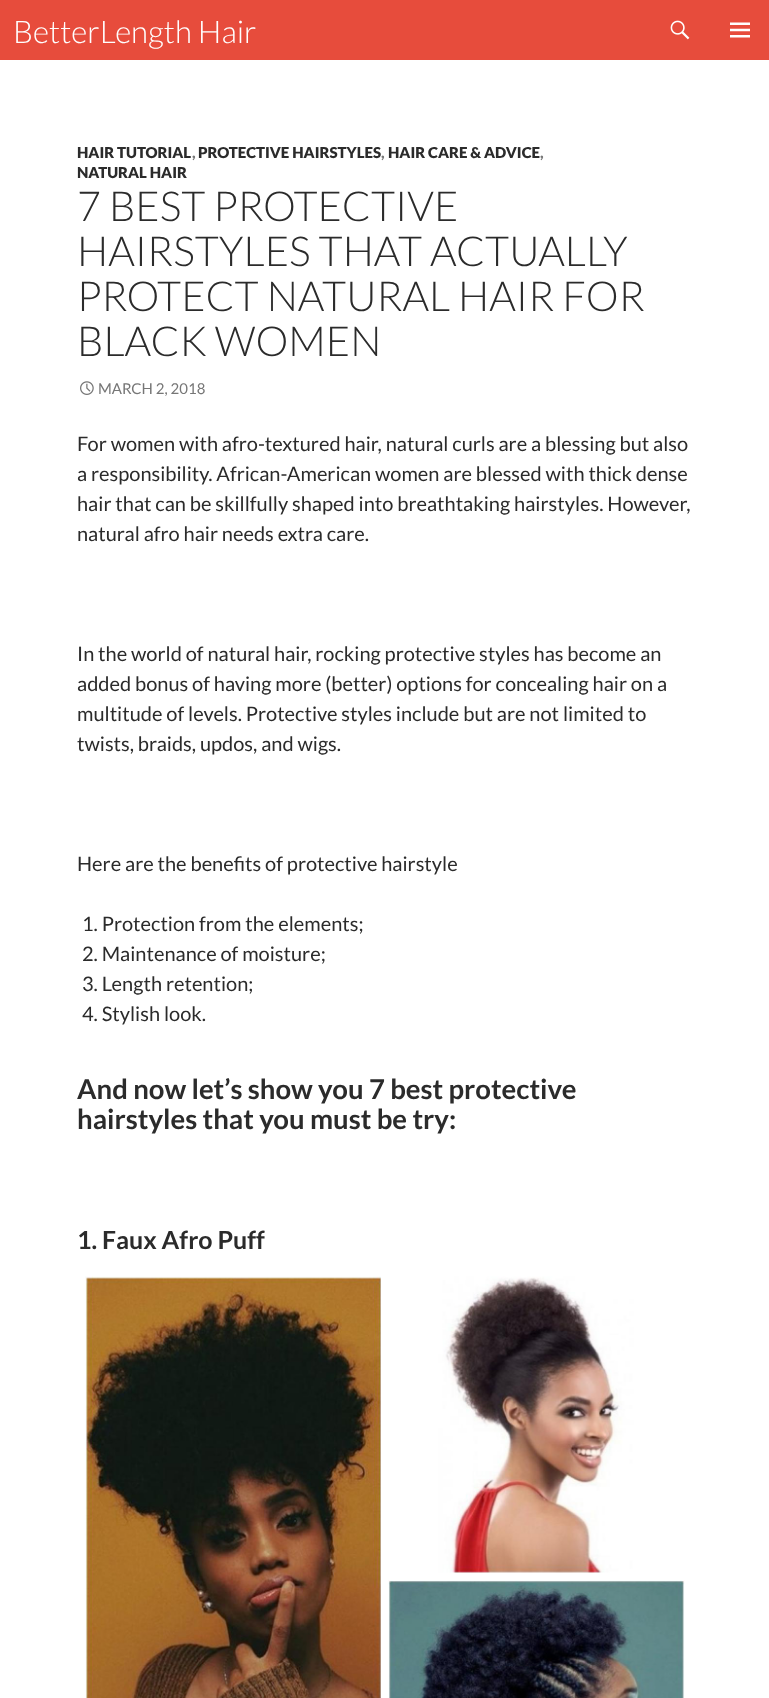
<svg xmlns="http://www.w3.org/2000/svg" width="769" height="1698">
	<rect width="100%" height="100%" fill="#FFFFFF" />
	<rect x="0" y="0" width="769" height="60" fill="#E74C3C" />
	<text x="13" y="43" font-family="Lato" font-size="31.25" font-weight="300" fill="#FFFFFF">BetterLength Hair</text>
	<image x="670" y="20" width="20" height="20" href="assets/img1.png" />
	<image x="730" y="22" width="20" height="16" href="assets/img2.png" />
	<text x="77" y="158" font-family="Lato" font-size="15" font-weight="900" fill="#2B2B2B">HAIR TUTORIAL</text>
	<text x="192" y="158" font-family="Lato" font-size="15" font-weight="900" fill="#767676">,</text>
	<text x="198" y="158" font-family="Lato" font-size="15" font-weight="900" fill="#2B2B2B">PROTECTIVE HAIRSTYLES</text>
	<text x="381" y="158" font-family="Lato" font-size="15" font-weight="900" fill="#767676">,</text>
	<text x="388" y="158" font-family="Lato" font-size="15" font-weight="900" fill="#2B2B2B">HAIR CARE &amp; ADVICE</text>
	<text x="540" y="158" font-family="Lato" font-size="15" font-weight="900" fill="#767676">,</text>
	<text x="77" y="178" font-family="Lato" font-size="15" font-weight="900" fill="#2B2B2B">NATURAL HAIR</text>
	<g font-family="Lato" font-size="41.25" font-weight="300" fill="#2B2B2B">
		<text x="77" y="221">7 BEST PROTECTIVE</text>
		<text x="77" y="266">HAIRSTYLES THAT ACTUALLY</text>
		<text x="77" y="311">PROTECT NATURAL HAIR FOR</text>
		<text x="77" y="356">BLACK WOMEN</text>
	</g>
	<image x="80" y="381" width="14" height="14" href="assets/img3.png" />
	<text x="98" y="394" font-family="Lato" font-size="15" fill="#767676">MARCH 2, 2018</text>
	<g font-family="Lato" font-size="20" fill="#2B2B2B">
		<text x="77" y="451">For women with afro-textured hair, natural curls are a blessing but also</text>
		<text x="77" y="481">a responsibility. African-American women are blessed with thick dense</text>
		<text x="77" y="511">hair that can be skillfully shaped into breathtaking hairstyles. However,</text>
		<text x="77" y="541">natural afro hair needs extra care.</text>
		<text x="77" y="661">In the world of natural hair, rocking protective styles has become an</text>
		<text x="77" y="691">added bonus of having more (better) options for concealing hair on a</text>
		<text x="77" y="721">multitude of levels. Protective styles include but are not limited to</text>
		<text x="77" y="751">twists, braids, updos, and wigs.</text>
		<text x="77" y="871">Here are the benefits of protective hairstyle</text>
		<text x="82" y="931">1. Protection from the elements;</text>
		<text x="82" y="961">2. Maintenance of moisture;</text>
		<text x="82" y="991">3. Length retention;</text>
		<text x="82" y="1021">4. Stylish look.</text>
	</g>
	<g font-family="Lato" font-size="27.5" font-weight="700" fill="#2B2B2B">
		<text x="77" y="1099">And now let’s show you 7 best protective</text>
		<text x="77" y="1129">hairstyles that you must be try:</text>
	</g>
	<text x="77" y="1249" font-family="Lato" font-size="25" font-weight="700" fill="#2B2B2B">1. Faux Afro Puff</text>
	<image x="85" y="1276" width="600" height="422" href="assets/img4.png" />
</svg>
